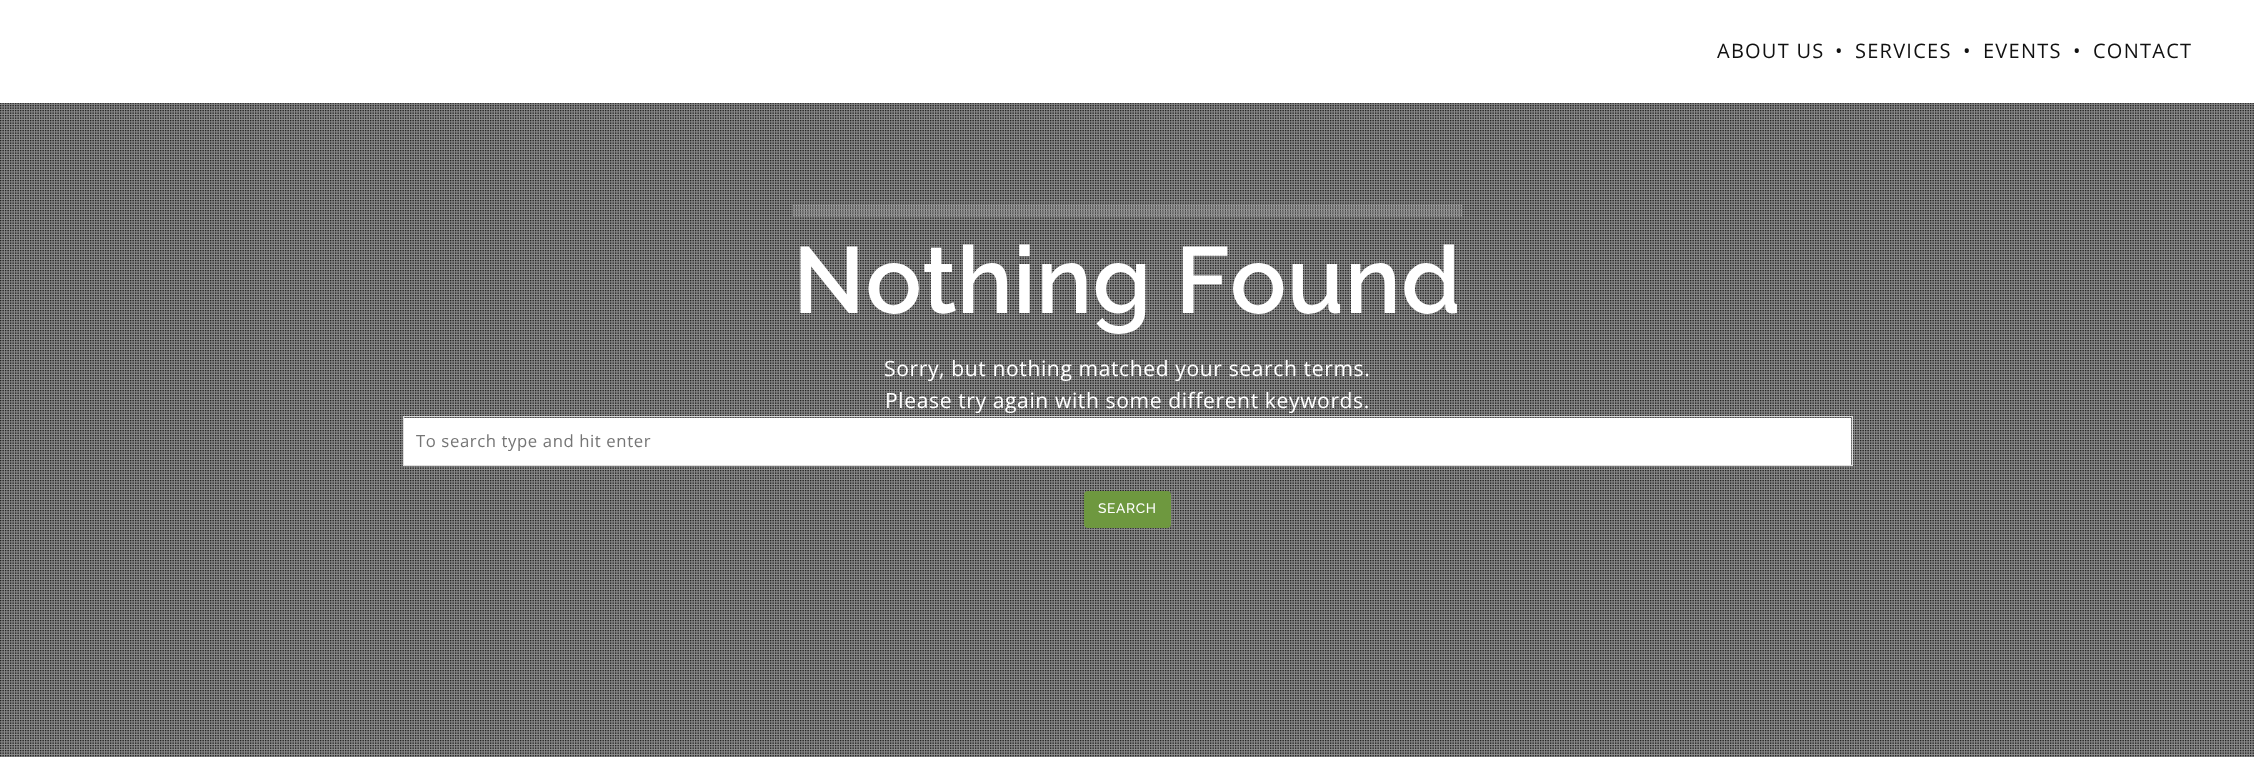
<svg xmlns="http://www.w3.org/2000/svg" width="2254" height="757">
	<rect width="100%" height="100%" fill="#FFFFFF" />
	<image x="0" y="103" width="2254" height="654" href="assets/img1.png" />
	<rect x="0" y="1" width="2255" height="103" fill="#080808" fill-opacity="0.15" filter="blur(3px)" />
	<rect x="0" y="0" width="2254" height="103" fill="#FFFFFF" />
	<g font-family="Open Sans" font-size="20" letter-spacing="1.25" fill="#111111">
		<text x="1717" y="58">ABOUT US</text>
		<text x="1835" y="58">•</text>
		<text x="1855" y="58">SERVICES</text>
		<text x="1963" y="58">•</text>
		<text x="1983" y="58">EVENTS</text>
		<text x="2073" y="58">•</text>
		<text x="2093" y="58">CONTACT</text>
	</g>
	<image x="792" y="205" width="671" height="12" href="assets/img2.png" />
	<text x="793" y="313" font-family="Raleway" font-size="93.75" font-weight="600" letter-spacing="0.6" fill="#FFFFFF">Nothing Found</text>
	<g font-family="Open Sans" font-size="21.1" letter-spacing="0.6" fill="#FFFFFF">
		<text x="884" y="376">Sorry, but nothing matched your search terms.</text>
		<text x="885" y="408">Please try again with some different keywords.</text>
	</g>
	<rect x="404" y="418" width="1447" height="47" fill="#FFFFFF" />
	<rect x="403.5" y="416.5" width="1449" height="49" fill="none" stroke="#DDDDDD" />
	<text x="416" y="447" font-family="Open Sans" font-size="16.7" letter-spacing="0.6" fill="#757575">To search type and hit enter</text>
	<rect x="1084" y="491" width="87" height="37" rx="4" fill="#6E983F" />
	<text x="1098" y="513" font-family="Raleway" font-size="13.75" font-weight="500" letter-spacing="0.6" fill="#FFFFFF">SEARCH</text>
</svg>
